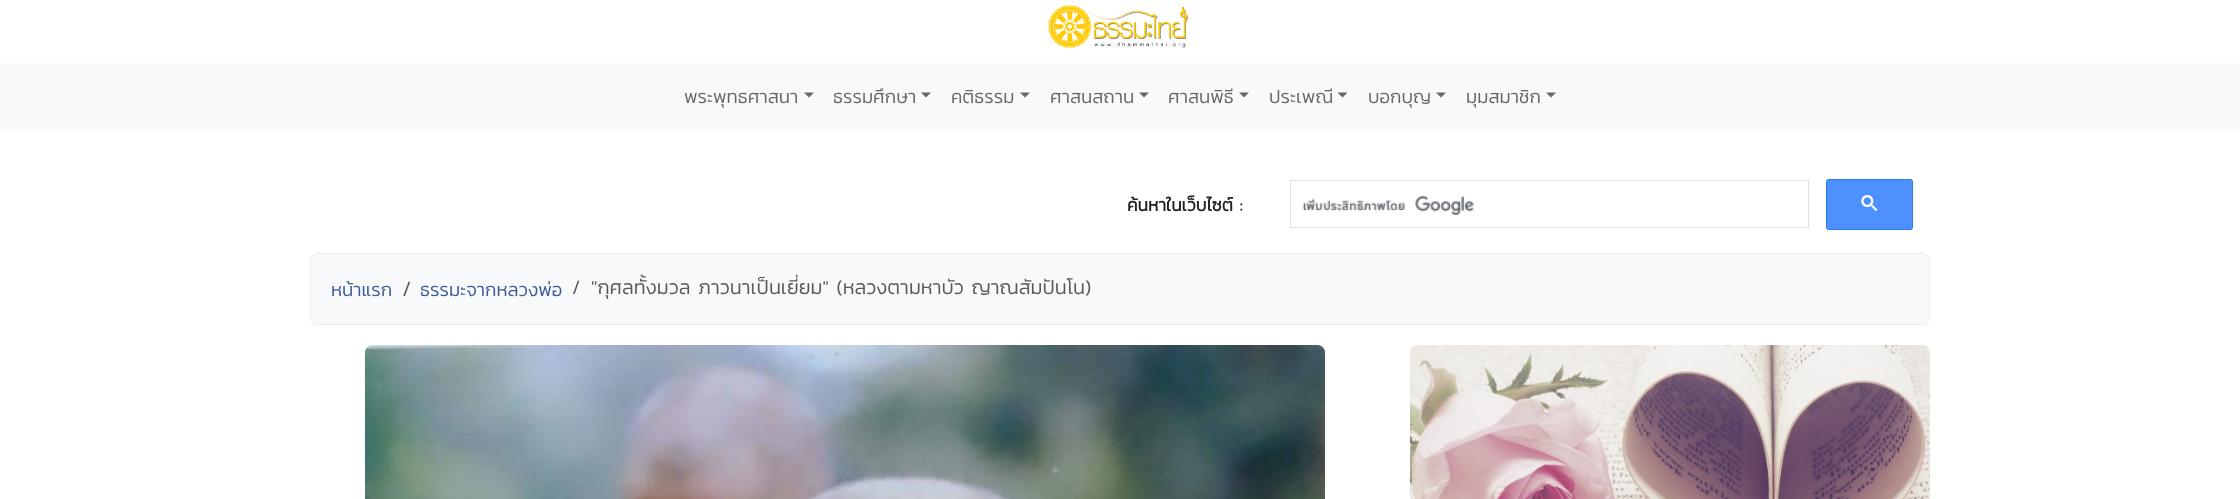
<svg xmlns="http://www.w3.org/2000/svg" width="2240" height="499">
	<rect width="100%" height="100%" fill="#FFFFFF" />
	<image x="1048" y="5" width="140" height="43" href="assets/img1.png" />
	<rect x="0" y="63" width="2240" height="68" rx="8" fill="#F8F9FA" />
	<text x="684" y="103" font-family="Kanit" font-size="18.75" font-weight="300" fill="#666666">พระพุทธศาสนา</text>
	<path d="M804 92.5H814L809 97.5Z" fill="#666666" />
	<text x="833" y="103" font-family="Kanit" font-size="18.75" font-weight="300" fill="#666666">ธรรมศึกษา</text>
	<path d="M921 92.5H931L926 97.5Z" fill="#666666" />
	<text x="951" y="103" font-family="Kanit" font-size="18.75" font-weight="300" fill="#666666">คติธรรม</text>
	<path d="M1020 92.5H1030L1025 97.5Z" fill="#666666" />
	<text x="1050" y="103" font-family="Kanit" font-size="18.75" font-weight="300" fill="#666666">ศาสนสถาน</text>
	<path d="M1139 92.5H1149L1144 97.5Z" fill="#666666" />
	<text x="1168" y="103" font-family="Kanit" font-size="18.75" font-weight="300" fill="#666666">ศาสนพิธี</text>
	<path d="M1239 92.5H1249L1244 97.5Z" fill="#666666" />
	<text x="1269" y="103" font-family="Kanit" font-size="18.75" font-weight="300" fill="#666666">ประเพณี</text>
	<path d="M1337.5 92.5H1347.5L1342.5 97.5Z" fill="#666666" />
	<text x="1368" y="103" font-family="Kanit" font-size="18.75" font-weight="300" fill="#666666">บอกบุญ</text>
	<path d="M1436 92.5H1446L1441 97.5Z" fill="#666666" />
	<text x="1466" y="103" font-family="Kanit" font-size="18.75" font-weight="300" fill="#666666">มุมสมาชิก</text>
	<path d="M1546 92.5H1556L1551 97.5Z" fill="#666666" />
	<text x="1127" y="211" font-family="Kanit" font-size="17.5" font-weight="700" fill="#212529">ค้นหาในเว็บไซต์ :</text>
	<rect x="1290.5" y="180.5" width="518" height="47" fill="none" stroke="#DFE1E5" />
	<image x="1302" y="196" width="172" height="19" href="assets/img2.png" />
	<rect x="1826.5" y="179.5" width="86" height="50" rx="2" fill="#4D90FE" stroke="#3079ED" />
	<image x="1861" y="195" width="17" height="16" href="assets/img3.png" />
	<rect x="310.5" y="253.5" width="1619" height="71" rx="7.5" fill="#F8F9FA" stroke="#E9ECEF" />
	<text x="331" y="296" font-family="Kanit" font-size="18.75" font-weight="300" fill="#3B5998">หน้าแรก</text>
	<text x="403" y="296" font-family="Noto Sans" font-size="20" fill="#575A5D">/</text>
	<text x="420" y="296" font-family="Kanit" font-size="18.75" font-weight="300" fill="#3B5998">ธรรมะจากหลวงพ่อ</text>
	<g font-family="Kanit" font-size="20" font-weight="300" fill="#575A5D">
		<text x="572" y="294">/</text>
		<text x="591" y="294">"กุศลทั้งมวล ภาวนาเป็นเยี่ยม" (หลวงตามหาบัว ญาณสัมปันโน)</text>
	</g>
	<image x="365" y="345" width="960" height="154" href="assets/img4.png" />
	<image x="1410" y="345" width="520" height="154" href="assets/img5.png" />
</svg>
